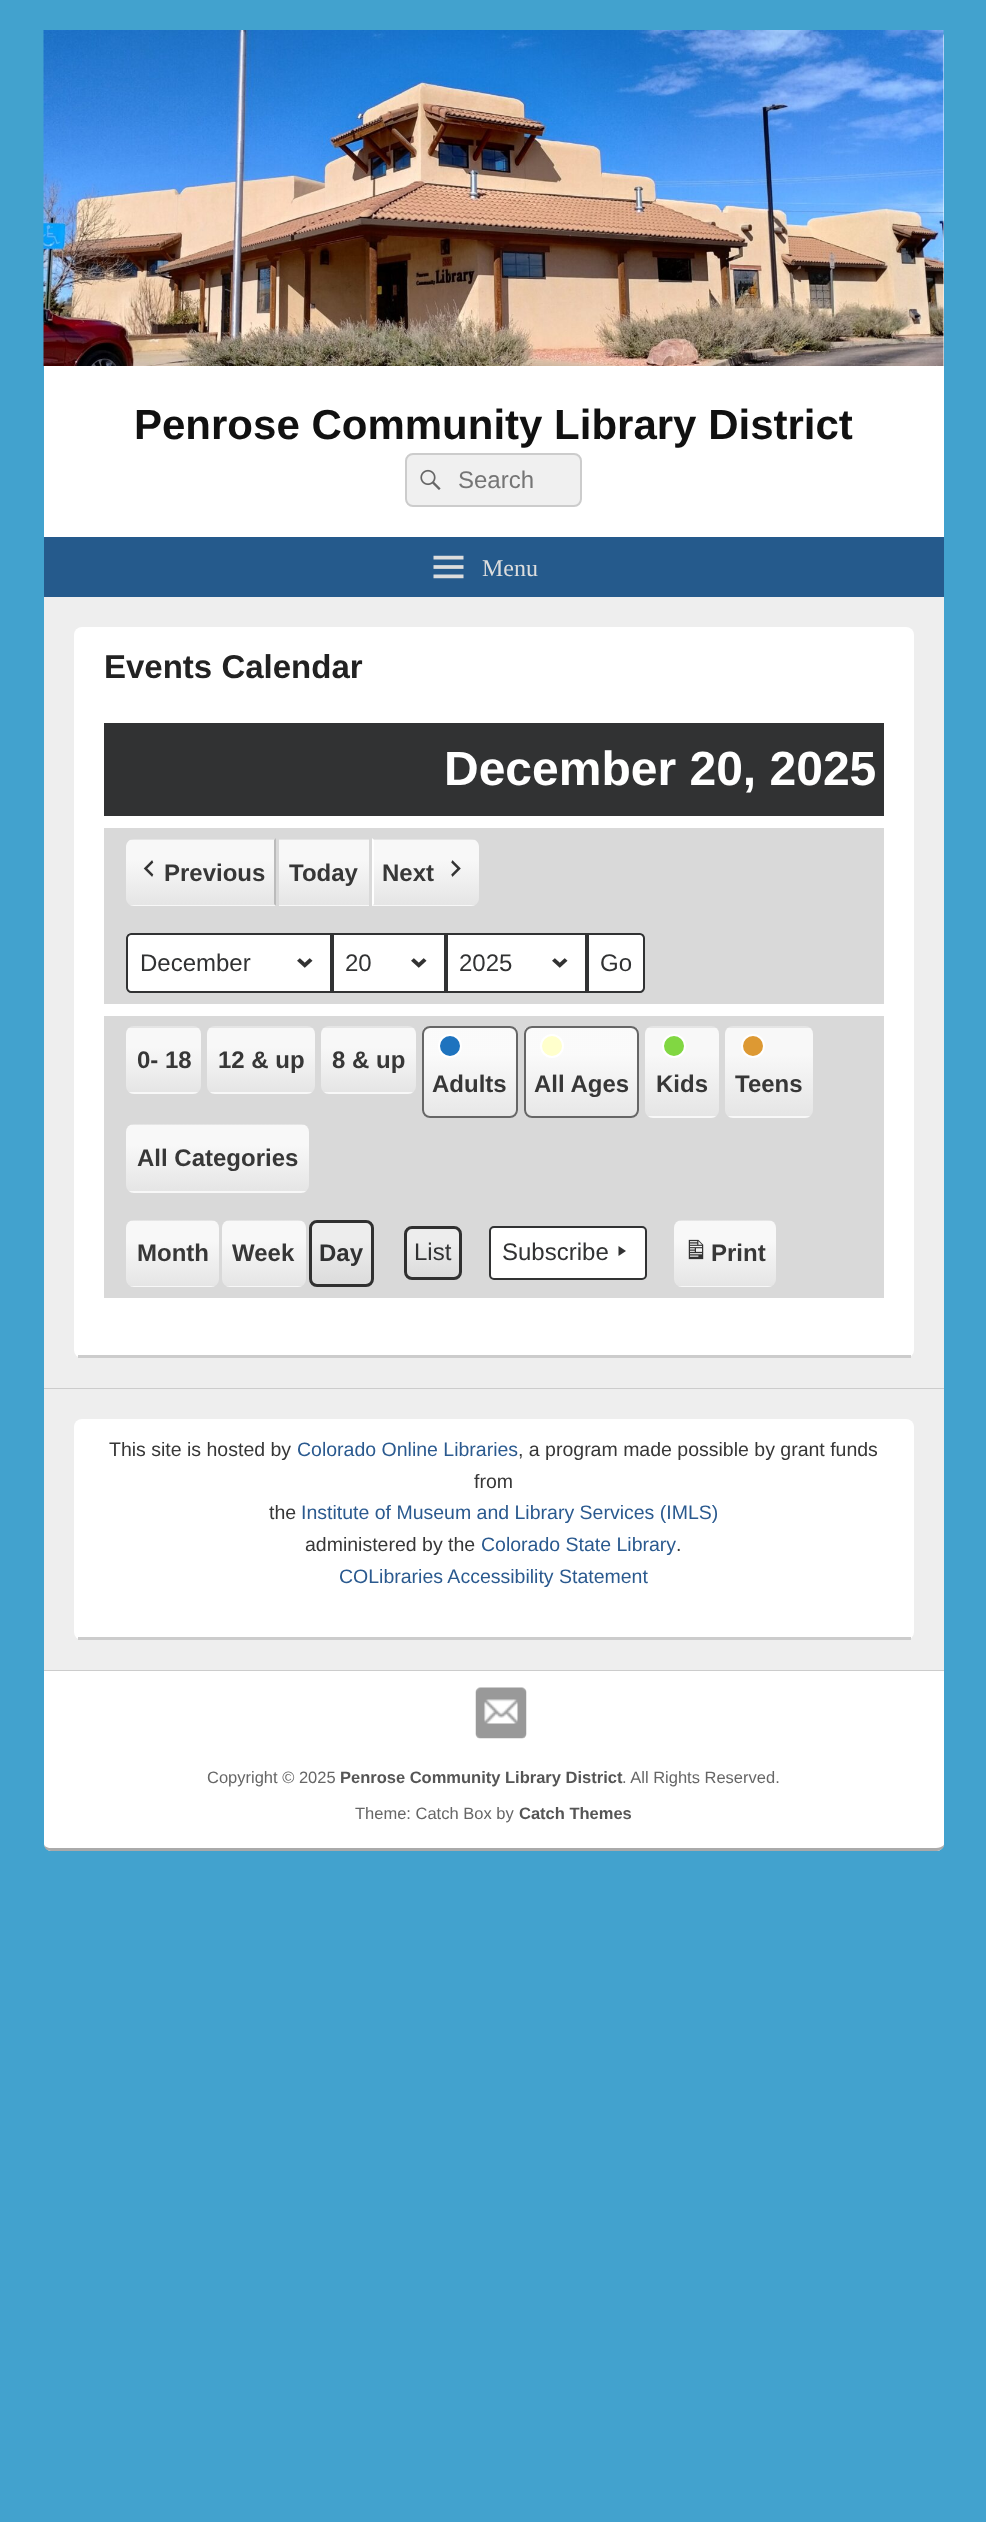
<svg xmlns="http://www.w3.org/2000/svg" width="986" height="2522">
	<defs>
		<clipPath id="clip1"><path d="M134 839H276V906H134C129.5 906 126 902.5 126 898V847C126 842.5 129.5 839 134 839Z" /></clipPath>
		<linearGradient id="g1" gradientUnits="userSpaceOnUse" x1="201" y1="840" x2="201" y2="776"><stop offset="0" stop-color="#E5E5E5" /><stop offset="0.7" stop-color="#F8F8F8" /></linearGradient>
		<linearGradient id="g2" gradientUnits="userSpaceOnUse" x1="201" y1="905" x2="201" y2="840"><stop offset="0" stop-color="#E5E5E5" /><stop offset="0.7" stop-color="#F8F8F8" /></linearGradient>
		<linearGradient id="g3" gradientUnits="userSpaceOnUse" x1="201" y1="969" x2="201" y2="905"><stop offset="0" stop-color="#E5E5E5" /><stop offset="0.7" stop-color="#F8F8F8" /></linearGradient>
		<linearGradient id="g4" gradientUnits="userSpaceOnUse" x1="324" y1="840" x2="324" y2="776"><stop offset="0" stop-color="#E5E5E5" /><stop offset="0.7" stop-color="#F8F8F8" /></linearGradient>
		<linearGradient id="g5" gradientUnits="userSpaceOnUse" x1="324" y1="905" x2="324" y2="840"><stop offset="0" stop-color="#E5E5E5" /><stop offset="0.7" stop-color="#F8F8F8" /></linearGradient>
		<linearGradient id="g6" gradientUnits="userSpaceOnUse" x1="324" y1="969" x2="324" y2="905"><stop offset="0" stop-color="#E5E5E5" /><stop offset="0.7" stop-color="#F8F8F8" /></linearGradient>
		<clipPath id="clip2"><path d="M372 839H471C475.5 839 479 842.5 479 847V898C479 902.5 475.5 906 471 906H372Z" /></clipPath>
		<linearGradient id="g7" gradientUnits="userSpaceOnUse" x1="425" y1="840" x2="425" y2="776"><stop offset="0" stop-color="#E5E5E5" /><stop offset="0.7" stop-color="#F8F8F8" /></linearGradient>
		<linearGradient id="g8" gradientUnits="userSpaceOnUse" x1="425" y1="905" x2="425" y2="840"><stop offset="0" stop-color="#E5E5E5" /><stop offset="0.7" stop-color="#F8F8F8" /></linearGradient>
		<linearGradient id="g9" gradientUnits="userSpaceOnUse" x1="425" y1="969" x2="425" y2="905"><stop offset="0" stop-color="#E5E5E5" /><stop offset="0.7" stop-color="#F8F8F8" /></linearGradient>
		<clipPath id="clip3"><rect x="126" y="1026" width="75" height="68" rx="8" /></clipPath>
		<linearGradient id="g10" gradientUnits="userSpaceOnUse" x1="164" y1="1028" x2="164" y2="963"><stop offset="0" stop-color="#E5E5E5" /><stop offset="0.7" stop-color="#F8F8F8" /></linearGradient>
		<linearGradient id="g11" gradientUnits="userSpaceOnUse" x1="164" y1="1092" x2="164" y2="1028"><stop offset="0" stop-color="#E5E5E5" /><stop offset="0.7" stop-color="#F8F8F8" /></linearGradient>
		<linearGradient id="g12" gradientUnits="userSpaceOnUse" x1="164" y1="1157" x2="164" y2="1092"><stop offset="0" stop-color="#E5E5E5" /><stop offset="0.7" stop-color="#F8F8F8" /></linearGradient>
		<clipPath id="clip4"><rect x="207" y="1026" width="108" height="68" rx="8" /></clipPath>
		<linearGradient id="g13" gradientUnits="userSpaceOnUse" x1="261" y1="1028" x2="261" y2="963"><stop offset="0" stop-color="#E5E5E5" /><stop offset="0.7" stop-color="#F8F8F8" /></linearGradient>
		<linearGradient id="g14" gradientUnits="userSpaceOnUse" x1="261" y1="1092" x2="261" y2="1028"><stop offset="0" stop-color="#E5E5E5" /><stop offset="0.7" stop-color="#F8F8F8" /></linearGradient>
		<linearGradient id="g15" gradientUnits="userSpaceOnUse" x1="261" y1="1157" x2="261" y2="1092"><stop offset="0" stop-color="#E5E5E5" /><stop offset="0.7" stop-color="#F8F8F8" /></linearGradient>
		<clipPath id="clip5"><rect x="321" y="1026" width="95" height="68" rx="8" /></clipPath>
		<linearGradient id="g16" gradientUnits="userSpaceOnUse" x1="368" y1="1028" x2="368" y2="963"><stop offset="0" stop-color="#E5E5E5" /><stop offset="0.7" stop-color="#F8F8F8" /></linearGradient>
		<linearGradient id="g17" gradientUnits="userSpaceOnUse" x1="368" y1="1092" x2="368" y2="1028"><stop offset="0" stop-color="#E5E5E5" /><stop offset="0.7" stop-color="#F8F8F8" /></linearGradient>
		<linearGradient id="g18" gradientUnits="userSpaceOnUse" x1="368" y1="1157" x2="368" y2="1092"><stop offset="0" stop-color="#E5E5E5" /><stop offset="0.7" stop-color="#F8F8F8" /></linearGradient>
		<clipPath id="clip6"><rect x="422" y="1026" width="96" height="92" rx="8" /></clipPath>
		<linearGradient id="g19" gradientUnits="userSpaceOnUse" x1="470" y1="1116" x2="470" y2="1028"><stop offset="0" stop-color="#E6E6E6" stop-opacity="0.95" /><stop offset="0.7" stop-color="#FAFAFA" stop-opacity="0.95" /></linearGradient>
		<clipPath id="clip7"><rect x="524" y="1026" width="115" height="92" rx="8" /></clipPath>
		<linearGradient id="g20" gradientUnits="userSpaceOnUse" x1="581" y1="1116" x2="581" y2="1028"><stop offset="0" stop-color="#E6E6E6" stop-opacity="0.95" /><stop offset="0.7" stop-color="#FAFAFA" stop-opacity="0.95" /></linearGradient>
		<clipPath id="clip8"><rect x="645" y="1026" width="74" height="92" rx="8" /></clipPath>
		<linearGradient id="g21" gradientUnits="userSpaceOnUse" x1="682" y1="1028" x2="682" y2="939"><stop offset="0" stop-color="#E5E5E5" /><stop offset="0.7" stop-color="#F8F8F8" /></linearGradient>
		<linearGradient id="g22" gradientUnits="userSpaceOnUse" x1="682" y1="1116" x2="682" y2="1028"><stop offset="0" stop-color="#E5E5E5" /><stop offset="0.7" stop-color="#F8F8F8" /></linearGradient>
		<linearGradient id="g23" gradientUnits="userSpaceOnUse" x1="682" y1="1205" x2="682" y2="1116"><stop offset="0" stop-color="#E5E5E5" /><stop offset="0.7" stop-color="#F8F8F8" /></linearGradient>
		<clipPath id="clip9"><rect x="725" y="1026" width="88" height="92" rx="8" /></clipPath>
		<linearGradient id="g24" gradientUnits="userSpaceOnUse" x1="769" y1="1028" x2="769" y2="939"><stop offset="0" stop-color="#E5E5E5" /><stop offset="0.7" stop-color="#F8F8F8" /></linearGradient>
		<linearGradient id="g25" gradientUnits="userSpaceOnUse" x1="769" y1="1116" x2="769" y2="1028"><stop offset="0" stop-color="#E5E5E5" /><stop offset="0.7" stop-color="#F8F8F8" /></linearGradient>
		<linearGradient id="g26" gradientUnits="userSpaceOnUse" x1="769" y1="1205" x2="769" y2="1116"><stop offset="0" stop-color="#E5E5E5" /><stop offset="0.7" stop-color="#F8F8F8" /></linearGradient>
		<clipPath id="clip10"><rect x="126" y="1124" width="183" height="69" rx="8" /></clipPath>
		<linearGradient id="g27" gradientUnits="userSpaceOnUse" x1="218" y1="1125" x2="218" y2="1059"><stop offset="0" stop-color="#E5E5E5" /><stop offset="0.7" stop-color="#F8F8F8" /></linearGradient>
		<linearGradient id="g28" gradientUnits="userSpaceOnUse" x1="218" y1="1191" x2="218" y2="1125"><stop offset="0" stop-color="#E5E5E5" /><stop offset="0.7" stop-color="#F8F8F8" /></linearGradient>
		<linearGradient id="g29" gradientUnits="userSpaceOnUse" x1="218" y1="1257" x2="218" y2="1191"><stop offset="0" stop-color="#E5E5E5" /><stop offset="0.7" stop-color="#F8F8F8" /></linearGradient>
		<clipPath id="clip11"><rect x="126" y="1220" width="93" height="67" rx="8" /></clipPath>
		<linearGradient id="g30" gradientUnits="userSpaceOnUse" x1="173" y1="1221" x2="173" y2="1157"><stop offset="0" stop-color="#E5E5E5" /><stop offset="0.7" stop-color="#F8F8F8" /></linearGradient>
		<linearGradient id="g31" gradientUnits="userSpaceOnUse" x1="173" y1="1286" x2="173" y2="1221"><stop offset="0" stop-color="#E5E5E5" /><stop offset="0.7" stop-color="#F8F8F8" /></linearGradient>
		<linearGradient id="g32" gradientUnits="userSpaceOnUse" x1="173" y1="1350" x2="173" y2="1286"><stop offset="0" stop-color="#E5E5E5" /><stop offset="0.7" stop-color="#F8F8F8" /></linearGradient>
		<clipPath id="clip12"><rect x="222" y="1220" width="84" height="67" rx="8" /></clipPath>
		<linearGradient id="g33" gradientUnits="userSpaceOnUse" x1="264" y1="1221" x2="264" y2="1157"><stop offset="0" stop-color="#E5E5E5" /><stop offset="0.7" stop-color="#F8F8F8" /></linearGradient>
		<linearGradient id="g34" gradientUnits="userSpaceOnUse" x1="264" y1="1286" x2="264" y2="1221"><stop offset="0" stop-color="#E5E5E5" /><stop offset="0.7" stop-color="#F8F8F8" /></linearGradient>
		<linearGradient id="g35" gradientUnits="userSpaceOnUse" x1="264" y1="1350" x2="264" y2="1286"><stop offset="0" stop-color="#E5E5E5" /><stop offset="0.7" stop-color="#F8F8F8" /></linearGradient>
		<clipPath id="clip13"><rect x="309" y="1220" width="65" height="67" rx="8" /></clipPath>
		<linearGradient id="g36" gradientUnits="userSpaceOnUse" x1="341" y1="1286" x2="341" y2="1221"><stop offset="0" stop-color="#DBDBDB" /><stop offset="0.7" stop-color="#EDEDED" /></linearGradient>
		<clipPath id="clip14"><rect x="404" y="1226" width="58" height="54" rx="8" /></clipPath>
		<linearGradient id="g37" gradientUnits="userSpaceOnUse" x1="433" y1="1278" x2="433" y2="1227"><stop offset="0" stop-color="#DBDBDB" /><stop offset="0.7" stop-color="#EDEDED" /></linearGradient>
		<clipPath id="clip15"><rect x="674" y="1220" width="102" height="67" rx="8" /></clipPath>
		<linearGradient id="g38" gradientUnits="userSpaceOnUse" x1="725" y1="1221" x2="725" y2="1157"><stop offset="0" stop-color="#E5E5E5" /><stop offset="0.7" stop-color="#F8F8F8" /></linearGradient>
		<linearGradient id="g39" gradientUnits="userSpaceOnUse" x1="725" y1="1286" x2="725" y2="1221"><stop offset="0" stop-color="#E5E5E5" /><stop offset="0.7" stop-color="#F8F8F8" /></linearGradient>
		<linearGradient id="g40" gradientUnits="userSpaceOnUse" x1="725" y1="1350" x2="725" y2="1286"><stop offset="0" stop-color="#E5E5E5" /><stop offset="0.7" stop-color="#F8F8F8" /></linearGradient>
	</defs>
	<rect width="100%" height="100%" fill="#42A2CE" />
	<rect x="44" y="30" width="900" height="1821" rx="8" fill="#EEEEEE" />
	<path d="M52 30H936C940.5 30 944 33.5 944 38V597H44V38C44 33.5 47.5 30 52 30Z" fill="#FFFFFF" />
	<image x="43" y="30" width="901" height="336" href="assets/img1.png" />
	<text x="134" y="439" font-family="Liberation Sans" font-size="42" font-weight="700" fill="#111111">Penrose Community Library District</text>
	<rect x="406" y="454" width="175" height="52" rx="7" fill="#F0F0F0" stroke="#CCCCCC" stroke-width="2" />
	<image x="420" y="469" width="21" height="21" href="assets/img2.png" />
	<text x="458" y="488" font-family="Liberation Sans" font-size="24" fill="#757575">Search</text>
	<rect x="44" y="537" width="900" height="60" fill="#255A8C" />
	<image x="433" y="555" width="31" height="24" href="assets/img3.png" />
	<text x="482" y="576" font-family="Liberation Serif" font-size="24" fill="#DDDDDD">Menu</text>
	<rect x="74" y="627" width="840" height="731" rx="8" fill="#FFFFFF" />
	<rect x="78" y="1355" width="833" height="3" fill="#CCCCCC" />
	<text x="104" y="678" font-family="Liberation Sans" font-size="33" font-weight="700" fill="#222222">Events Calendar</text>
	<rect x="104" y="723" width="780" height="93" fill="#313233" />
	<text x="444" y="785" font-family="Liberation Sans" font-size="48" font-weight="700" fill="#FFFFFF">December 20, 2025</text>
	<rect x="104" y="828" width="780" height="176" fill="#D9D9D9" />
	<g clip-path="url(#clip1)">
		<rect x="126" y="839" width="150" height="1" fill="url(#g1)" />
		<rect x="126" y="840" width="149" height="65" fill="url(#g2)" />
		<rect x="126" y="905" width="150" height="1" fill="url(#g3)" />
	</g>
	<path d="M276 838L274 840V904L276 906Z" fill="#BBBBBB" />
	<image x="143" y="860" width="11" height="17" href="assets/img4.png" />
	<text x="164" y="881" font-family="Liberation Sans" font-size="24" font-weight="700" fill="#373737">Previous</text>
	<rect x="279" y="839" width="90" height="1" fill="url(#g4)" />
	<rect x="279" y="840" width="90" height="65" fill="url(#g5)" />
	<rect x="279" y="905" width="90" height="1" fill="url(#g6)" />
	<text x="289" y="881" font-family="Liberation Sans" font-size="24" font-weight="700" fill="#373737">Today</text>
	<g clip-path="url(#clip2)">
		<rect x="372" y="839" width="107" height="1" fill="url(#g7)" />
		<rect x="373" y="840" width="106" height="65" fill="url(#g8)" />
		<rect x="372" y="905" width="107" height="1" fill="url(#g9)" />
	</g>
	<path d="M372 906L374 904V840L372 838Z" fill="#FFFFFF" />
	<text x="382" y="881" font-family="Liberation Sans" font-size="24" font-weight="700" fill="#373737">Next</text>
	<image x="451" y="860" width="10" height="17" href="assets/img5.png" />
	<path d="M131 933H332V993H131C128 993 126 991 126 988V938C126 935 128 933 131 933Z" fill="#FFFFFF" />
	<image x="297" y="958" width="16" height="10" href="assets/img6.png" />
	<path d="M131 934H331V992H131C129 992 127 990 127 988V938C127 936 129 934 131 934Z" fill="none" stroke="#313233" stroke-width="2" />
	<text x="140" y="971" font-family="Liberation Sans" font-size="24" fill="#313233">December</text>
	<rect x="334" y="935" width="110" height="56" fill="#FFFFFF" />
	<image x="411" y="958" width="16" height="10" href="assets/img6.png" />
	<rect x="333" y="934" width="112" height="58" fill="none" stroke="#313233" stroke-width="2" />
	<text x="345" y="971" font-family="Liberation Sans" font-size="24" fill="#313233">20</text>
	<rect x="448" y="935" width="137" height="56" fill="#FFFFFF" />
	<image x="552" y="958" width="16" height="10" href="assets/img6.png" />
	<rect x="447" y="934" width="139" height="58" fill="none" stroke="#313233" stroke-width="2" />
	<text x="459" y="971" font-family="Liberation Sans" font-size="24" fill="#313233">2025</text>
	<path d="M588 934H640C642 934 644 936 644 938V988C644 990 642 992 640 992H588Z" fill="#FFFFFF" stroke="#313233" stroke-width="2" />
	<text x="600" y="971" font-family="Liberation Sans" font-size="24" fill="#313233">Go</text>
	<rect x="104" y="1016" width="780" height="282" fill="#D9D9D9" />
	<g clip-path="url(#clip3)">
		<rect x="126" y="1026" width="75" height="2" fill="url(#g10)" />
		<rect x="126" y="1028" width="75" height="64" fill="url(#g11)" />
		<rect x="126" y="1092" width="75" height="2" fill="url(#g12)" />
	</g>
	<text x="137" y="1068" font-family="Liberation Sans" font-size="24" font-weight="700" fill="#373737">0- 18</text>
	<g clip-path="url(#clip4)">
		<rect x="207" y="1026" width="108" height="2" fill="url(#g13)" />
		<rect x="207" y="1028" width="108" height="64" fill="url(#g14)" />
		<rect x="207" y="1092" width="108" height="2" fill="url(#g15)" />
	</g>
	<text x="218" y="1068" font-family="Liberation Sans" font-size="24" font-weight="700" fill="#373737">12 &amp; up</text>
	<g clip-path="url(#clip5)">
		<rect x="321" y="1026" width="95" height="2" fill="url(#g16)" />
		<rect x="321" y="1028" width="95" height="64" fill="url(#g17)" />
		<rect x="321" y="1092" width="95" height="2" fill="url(#g18)" />
	</g>
	<text x="332" y="1068" font-family="Liberation Sans" font-size="24" font-weight="700" fill="#373737">8 &amp; up</text>
	<rect x="422" y="1026" width="96" height="92" rx="8" fill="#FFFFFF" />
	<g clip-path="url(#clip6)">
		<rect x="422" y="1028" width="96" height="88" fill="url(#g19)" />
	</g>
	<rect x="423" y="1027" width="94" height="90" rx="7" fill="none" stroke="#666666" stroke-width="2" />
	<circle cx="450" cy="1046" r="11" fill="#1E73BE" stroke="#FFFFFF" stroke-width="2" />
	<text x="432" y="1092" font-family="Liberation Sans" font-size="24" font-weight="700" fill="#373737">Adults</text>
	<rect x="524" y="1026" width="115" height="92" rx="8" fill="#FFFFFF" />
	<g clip-path="url(#clip7)">
		<rect x="524" y="1028" width="115" height="88" fill="url(#g20)" />
	</g>
	<rect x="525" y="1027" width="113" height="90" rx="7" fill="none" stroke="#666666" stroke-width="2" />
	<circle cx="552" cy="1046" r="11" fill="#FFFFCC" stroke="#FFFFFF" stroke-width="2" />
	<text x="534" y="1092" font-family="Liberation Sans" font-size="24" font-weight="700" fill="#373737">All Ages</text>
	<g clip-path="url(#clip8)">
		<rect x="645" y="1026" width="74" height="2" fill="url(#g21)" />
		<rect x="645" y="1028" width="74" height="88" fill="url(#g22)" />
		<rect x="645" y="1116" width="74" height="2" fill="url(#g23)" />
	</g>
	<circle cx="674" cy="1046" r="11" fill="#81D742" stroke="#FFFFFF" stroke-width="2" />
	<text x="656" y="1092" font-family="Liberation Sans" font-size="24" font-weight="700" fill="#373737">Kids</text>
	<g clip-path="url(#clip9)">
		<rect x="725" y="1026" width="88" height="2" fill="url(#g24)" />
		<rect x="725" y="1028" width="88" height="88" fill="url(#g25)" />
		<rect x="725" y="1116" width="88" height="2" fill="url(#g26)" />
	</g>
	<circle cx="753" cy="1046" r="11" fill="#DD9933" stroke="#FFFFFF" stroke-width="2" />
	<text x="735" y="1092" font-family="Liberation Sans" font-size="24" font-weight="700" fill="#373737">Teens</text>
	<g clip-path="url(#clip10)">
		<rect x="126" y="1124" width="183" height="1" fill="url(#g27)" />
		<rect x="126" y="1125" width="183" height="66" fill="url(#g28)" />
		<rect x="126" y="1191" width="183" height="2" fill="url(#g29)" />
	</g>
	<text x="137" y="1166" font-family="Liberation Sans" font-size="24" font-weight="700" fill="#373737">All Categories</text>
	<g clip-path="url(#clip11)">
		<rect x="126" y="1220" width="93" height="1" fill="url(#g30)" />
		<rect x="126" y="1221" width="93" height="65" fill="url(#g31)" />
		<rect x="126" y="1286" width="93" height="1" fill="url(#g32)" />
	</g>
	<text x="137" y="1261" font-family="Liberation Sans" font-size="24" font-weight="700" fill="#373737">Month</text>
	<g clip-path="url(#clip12)">
		<rect x="222" y="1220" width="84" height="1" fill="url(#g33)" />
		<rect x="222" y="1221" width="84" height="65" fill="url(#g34)" />
		<rect x="222" y="1286" width="84" height="1" fill="url(#g35)" />
	</g>
	<text x="232" y="1261" font-family="Liberation Sans" font-size="24" font-weight="700" fill="#373737">Week</text>
	<g clip-path="url(#clip13)">
		<rect x="309" y="1221" width="65" height="65" fill="url(#g36)" />
	</g>
	<rect x="310.5" y="1221.5" width="62" height="64" rx="6.5" fill="none" stroke="#303030" stroke-width="3" />
	<text x="319" y="1261" font-family="Liberation Sans" font-size="24" font-weight="700" fill="#313233">Day</text>
	<g clip-path="url(#clip14)">
		<rect x="404" y="1227" width="58" height="51" fill="url(#g37)" />
	</g>
	<rect x="405.5" y="1227.5" width="55" height="51" rx="6.5" fill="none" stroke="#303030" stroke-width="3" />
	<text x="414" y="1260" font-family="Liberation Sans" font-size="24" fill="#313233">List</text>
	<rect x="490" y="1227" width="156" height="52" rx="4" fill="#FFFFFF" stroke="#313233" stroke-width="2" />
	<text x="502" y="1260" font-family="Liberation Sans" font-size="24" fill="#313233">Subscribe</text>
	<path d="M618.5 1246L626 1251L618.5 1256Z" fill="#313233" />
	<g clip-path="url(#clip15)">
		<rect x="674" y="1220" width="102" height="1" fill="url(#g38)" />
		<rect x="674" y="1221" width="102" height="65" fill="url(#g39)" />
		<rect x="674" y="1286" width="102" height="1" fill="url(#g40)" />
	</g>
	<image x="688" y="1239" width="16" height="21" href="assets/img7.png" />
	<text x="711" y="1261" font-family="Liberation Sans" font-size="24" font-weight="700" fill="#373737">Print</text>
	<rect x="44" y="1388" width="900" height="1" fill="#CCCCCC" />
	<rect x="74" y="1419" width="840" height="221" rx="8" fill="#FFFFFF" />
	<rect x="78" y="1637" width="833" height="3" fill="#CCCCCC" />
	<text x="109" y="1456" font-family="Liberation Sans" font-size="19.5" fill="#373737">This site is hosted by</text>
	<text x="297" y="1456" font-family="Liberation Sans" font-size="19.5" fill="#2B5A8F">Colorado Online Libraries</text>
	<g font-family="Liberation Sans" font-size="19.5" fill="#373737">
		<text x="518" y="1456">, a program made possible by grant funds</text>
		<text x="474" y="1488">from</text>
		<text x="269" y="1519">the</text>
	</g>
	<text x="301" y="1519" font-family="Liberation Sans" font-size="19.5" fill="#2B5A8F">Institute of Museum and Library Services (IMLS)</text>
	<text x="305" y="1551" font-family="Liberation Sans" font-size="19.5" fill="#373737">administered by the</text>
	<text x="481" y="1551" font-family="Liberation Sans" font-size="19.5" fill="#2B5A8F">Colorado State Library</text>
	<text x="676" y="1551" font-family="Liberation Sans" font-size="19.5" fill="#373737">.</text>
	<text x="339" y="1583" font-family="Liberation Sans" font-size="19.5" fill="#2B5A8F">COLibraries Accessibility Statement</text>
	<path d="M44 1670H944V1843C944 1847.5 940.5 1851 936 1851H52C47.5 1851 44 1847.5 44 1843Z" fill="#FFFFFF" />
	<rect x="44" y="1670" width="900" height="1" fill="#CCCCCC" />
	<path d="M51 1851H936C939 1851 944 1849 944 1845C942 1847 939 1848 936 1848H51C47 1848 44 1846 44 1844C44 1848 47 1851 51 1851Z" fill="#AAAAAA" />
	<image x="475" y="1687" width="52" height="52" href="assets/img8.png" />
	<text x="207" y="1783" font-family="Liberation Sans" font-size="16.5" fill="#666666">Copyright © 2025</text>
	<text x="340" y="1783" font-family="Liberation Sans" font-size="16.5" font-weight="700" fill="#555555">Penrose Community Library District</text>
	<g font-family="Liberation Sans" font-size="16.5" fill="#666666">
		<text x="622" y="1783">. All Rights Reserved.</text>
		<text x="355" y="1819">Theme: Catch Box by</text>
	</g>
	<text x="519" y="1819" font-family="Liberation Sans" font-size="16.5" font-weight="700" fill="#555555">Catch Themes</text>
</svg>
